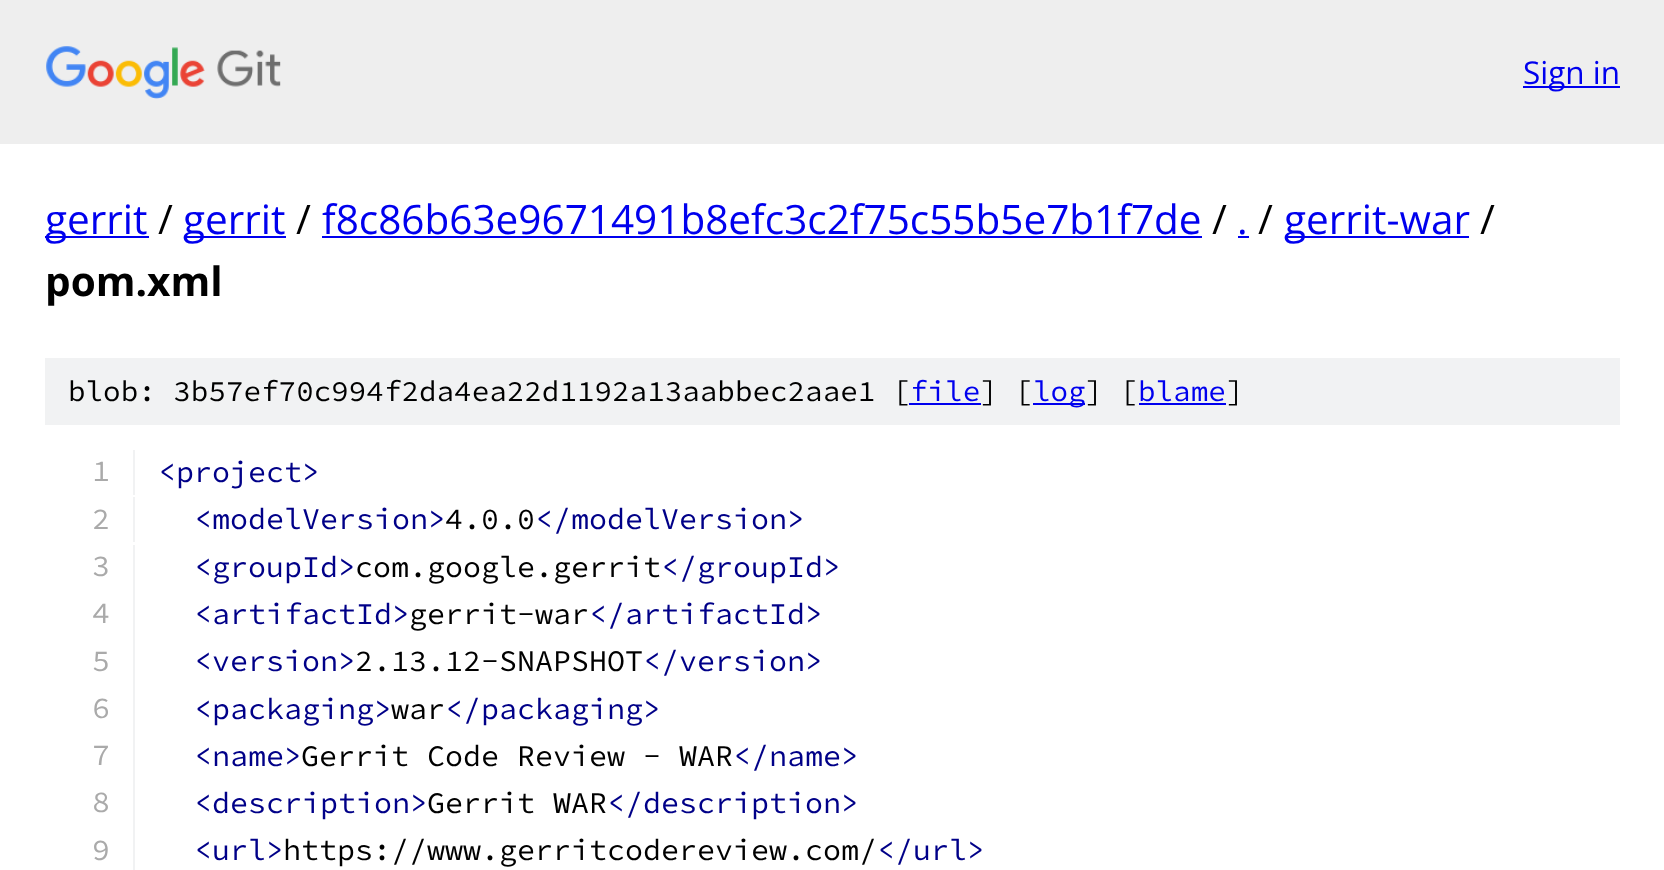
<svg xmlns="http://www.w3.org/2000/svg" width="1664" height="870">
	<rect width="100%" height="100%" fill="#FFFFFF" />
	<rect x="0" y="0" width="1664" height="144" fill="#EEEEEE" />
	<image x="46" y="46" width="235" height="53" href="assets/img1.png" />
	<rect x="1523" y="86" width="97" height="2" fill="#0000EE" />
	<text x="1523" y="84" font-family="Open Sans" font-size="31.5" fill="#0000EE">Sign in</text>
	<rect x="45" y="236" width="104" height="2" fill="#0000EE" />
	<text x="45" y="234" font-family="Open Sans" font-size="40.5" fill="#0000EE">gerrit</text>
	<text x="158" y="234" font-family="Open Sans" font-size="40.5" fill="#000000">/</text>
	<rect x="185" y="236" width="101" height="2" fill="#0000EE" />
	<text x="183" y="234" font-family="Open Sans" font-size="40.5" fill="#0000EE">gerrit</text>
	<text x="296" y="234" font-family="Open Sans" font-size="40.5" fill="#000000">/</text>
	<text x="322" y="234" font-family="Open Sans" font-size="40.5" fill="#0000EE">f8c86b63e9671491b8efc3c2f75c55b5e7b1f7de</text>
	<rect x="322" y="236" width="880" height="2" fill="#0000EE" />
	<text x="1212" y="234" font-family="Open Sans" font-size="40.5" fill="#000000">/</text>
	<text x="1237" y="234" font-family="Open Sans" font-size="40.5" fill="#0000EE">.</text>
	<rect x="1238" y="236" width="11" height="2" fill="#0000EE" />
	<text x="1258" y="234" font-family="Open Sans" font-size="40.5" fill="#000000">/</text>
	<rect x="1285" y="236" width="184" height="2" fill="#0000EE" />
	<text x="1284" y="234" font-family="Open Sans" font-size="40.5" fill="#0000EE">gerrit-war</text>
	<text x="1480" y="234" font-family="Open Sans" font-size="40.5" fill="#000000">/</text>
	<text x="45" y="296" font-family="Open Sans" font-size="40.5" font-weight="700" fill="#000000">pom.xml</text>
	<rect x="45" y="358" width="1575" height="67" fill="#F1F2F3" />
	<text x="68" y="401" font-family="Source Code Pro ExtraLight" font-size="29.25" font-weight="200" fill="#000000">blob: 3b57ef70c994f2da4ea22d1192a13aabbec2aae1 [</text>
	<text x="910" y="401" font-family="Source Code Pro ExtraLight" font-size="29.25" font-weight="200" fill="#0000EE">file</text>
	<rect x="909" y="403" width="72" height="2" fill="#0000EE" />
	<text x="980" y="401" font-family="Source Code Pro ExtraLight" font-size="29.25" font-weight="200" fill="#000000">] [</text>
	<rect x="1033" y="403" width="52" height="2" fill="#0000EE" />
	<text x="1033" y="401" font-family="Source Code Pro ExtraLight" font-size="29.25" font-weight="200" fill="#0000EE">log</text>
	<text x="1085" y="401" font-family="Source Code Pro ExtraLight" font-size="29.25" font-weight="200" fill="#000000">] [</text>
	<text x="1138" y="401" font-family="Source Code Pro ExtraLight" font-size="29.25" font-weight="200" fill="#0000EE">blame</text>
	<rect x="1139" y="403" width="87" height="2" fill="#0000EE" />
	<text x="1226" y="401" font-family="Source Code Pro ExtraLight" font-size="29.25" font-weight="200" fill="#000000">]</text>
	<rect x="133" y="450" width="2" height="45" fill="#F1F2F3" />
	<text x="92" y="481" font-family="Source Code Pro ExtraLight" font-size="30" font-weight="200" fill="#AAAAAA">1</text>
	<text x="158" y="482" font-family="Source Code Pro ExtraLight" font-size="30" font-weight="200" fill="#000088">&lt;project&gt;</text>
	<rect x="133" y="497" width="2" height="45" fill="#F1F2F3" />
	<text x="92" y="529" font-family="Source Code Pro ExtraLight" font-size="30" font-weight="200" fill="#AAAAAA">2</text>
	<text x="194" y="529" font-family="Source Code Pro ExtraLight" font-size="30" font-weight="200" fill="#000088">&lt;modelVersion&gt;</text>
	<text x="445" y="529" font-family="Source Code Pro ExtraLight" font-size="30" font-weight="200" fill="#000000">4.0.0</text>
	<text x="535" y="529" font-family="Source Code Pro ExtraLight" font-size="30" font-weight="200" fill="#000088">&lt;/modelVersion&gt;</text>
	<rect x="133" y="545" width="2" height="325" fill="#F1F2F3" />
	<text x="92" y="576" font-family="Source Code Pro ExtraLight" font-size="30" font-weight="200" fill="#AAAAAA">3</text>
	<text x="194" y="577" font-family="Source Code Pro ExtraLight" font-size="30" font-weight="200" fill="#000088">&lt;groupId&gt;</text>
	<text x="355" y="577" font-family="Source Code Pro ExtraLight" font-size="30" font-weight="200" fill="#000000">com.google.gerrit</text>
	<text x="661" y="577" font-family="Source Code Pro ExtraLight" font-size="30" font-weight="200" fill="#000088">&lt;/groupId&gt;</text>
	<text x="92" y="623" font-family="Source Code Pro ExtraLight" font-size="30" font-weight="200" fill="#AAAAAA">4</text>
	<text x="194" y="624" font-family="Source Code Pro ExtraLight" font-size="30" font-weight="200" fill="#000088">&lt;artifactId&gt;</text>
	<text x="409" y="624" font-family="Source Code Pro ExtraLight" font-size="30" font-weight="200" fill="#000000">gerrit-war</text>
	<text x="589" y="624" font-family="Source Code Pro ExtraLight" font-size="30" font-weight="200" fill="#000088">&lt;/artifactId&gt;</text>
	<text x="92" y="671" font-family="Source Code Pro ExtraLight" font-size="30" font-weight="200" fill="#AAAAAA">5</text>
	<text x="194" y="671" font-family="Source Code Pro ExtraLight" font-size="30" font-weight="200" fill="#000088">&lt;version&gt;</text>
	<text x="355" y="671" font-family="Source Code Pro ExtraLight" font-size="30" font-weight="200" fill="#000000">2.13.12-SNAPSHOT</text>
	<text x="643" y="671" font-family="Source Code Pro ExtraLight" font-size="30" font-weight="200" fill="#000088">&lt;/version&gt;</text>
	<text x="92" y="718" font-family="Source Code Pro ExtraLight" font-size="30" font-weight="200" fill="#AAAAAA">6</text>
	<text x="194" y="719" font-family="Source Code Pro ExtraLight" font-size="30" font-weight="200" fill="#000088">&lt;packaging&gt;</text>
	<text x="391" y="719" font-family="Source Code Pro ExtraLight" font-size="30" font-weight="200" fill="#000000">war</text>
	<text x="445" y="719" font-family="Source Code Pro ExtraLight" font-size="30" font-weight="200" fill="#000088">&lt;/packaging&gt;</text>
	<text x="92" y="765" font-family="Source Code Pro ExtraLight" font-size="30" font-weight="200" fill="#AAAAAA">7</text>
	<text x="194" y="766" font-family="Source Code Pro ExtraLight" font-size="30" font-weight="200" fill="#000088">&lt;name&gt;</text>
	<text x="301" y="766" font-family="Source Code Pro ExtraLight" font-size="30" font-weight="200" fill="#000000">Gerrit Code Review - WAR</text>
	<text x="733" y="766" font-family="Source Code Pro ExtraLight" font-size="30" font-weight="200" fill="#000088">&lt;/name&gt;</text>
	<text x="92" y="812" font-family="Source Code Pro ExtraLight" font-size="30" font-weight="200" fill="#AAAAAA">8</text>
	<text x="194" y="813" font-family="Source Code Pro ExtraLight" font-size="30" font-weight="200" fill="#000088">&lt;description&gt;</text>
	<text x="427" y="813" font-family="Source Code Pro ExtraLight" font-size="30" font-weight="200" fill="#000000">Gerrit WAR</text>
	<text x="607" y="813" font-family="Source Code Pro ExtraLight" font-size="30" font-weight="200" fill="#000088">&lt;/description&gt;</text>
	<text x="92" y="860" font-family="Source Code Pro ExtraLight" font-size="30" font-weight="200" fill="#AAAAAA">9</text>
	<text x="194" y="860" font-family="Source Code Pro ExtraLight" font-size="30" font-weight="200" fill="#000088">&lt;url&gt;</text>
	<text x="283" y="860" font-family="Source Code Pro ExtraLight" font-size="30" font-weight="200" fill="#000000">https://www.gerritcodereview.com/</text>
	<text x="877" y="860" font-family="Source Code Pro ExtraLight" font-size="30" font-weight="200" fill="#000088">&lt;/url&gt;</text>
</svg>
